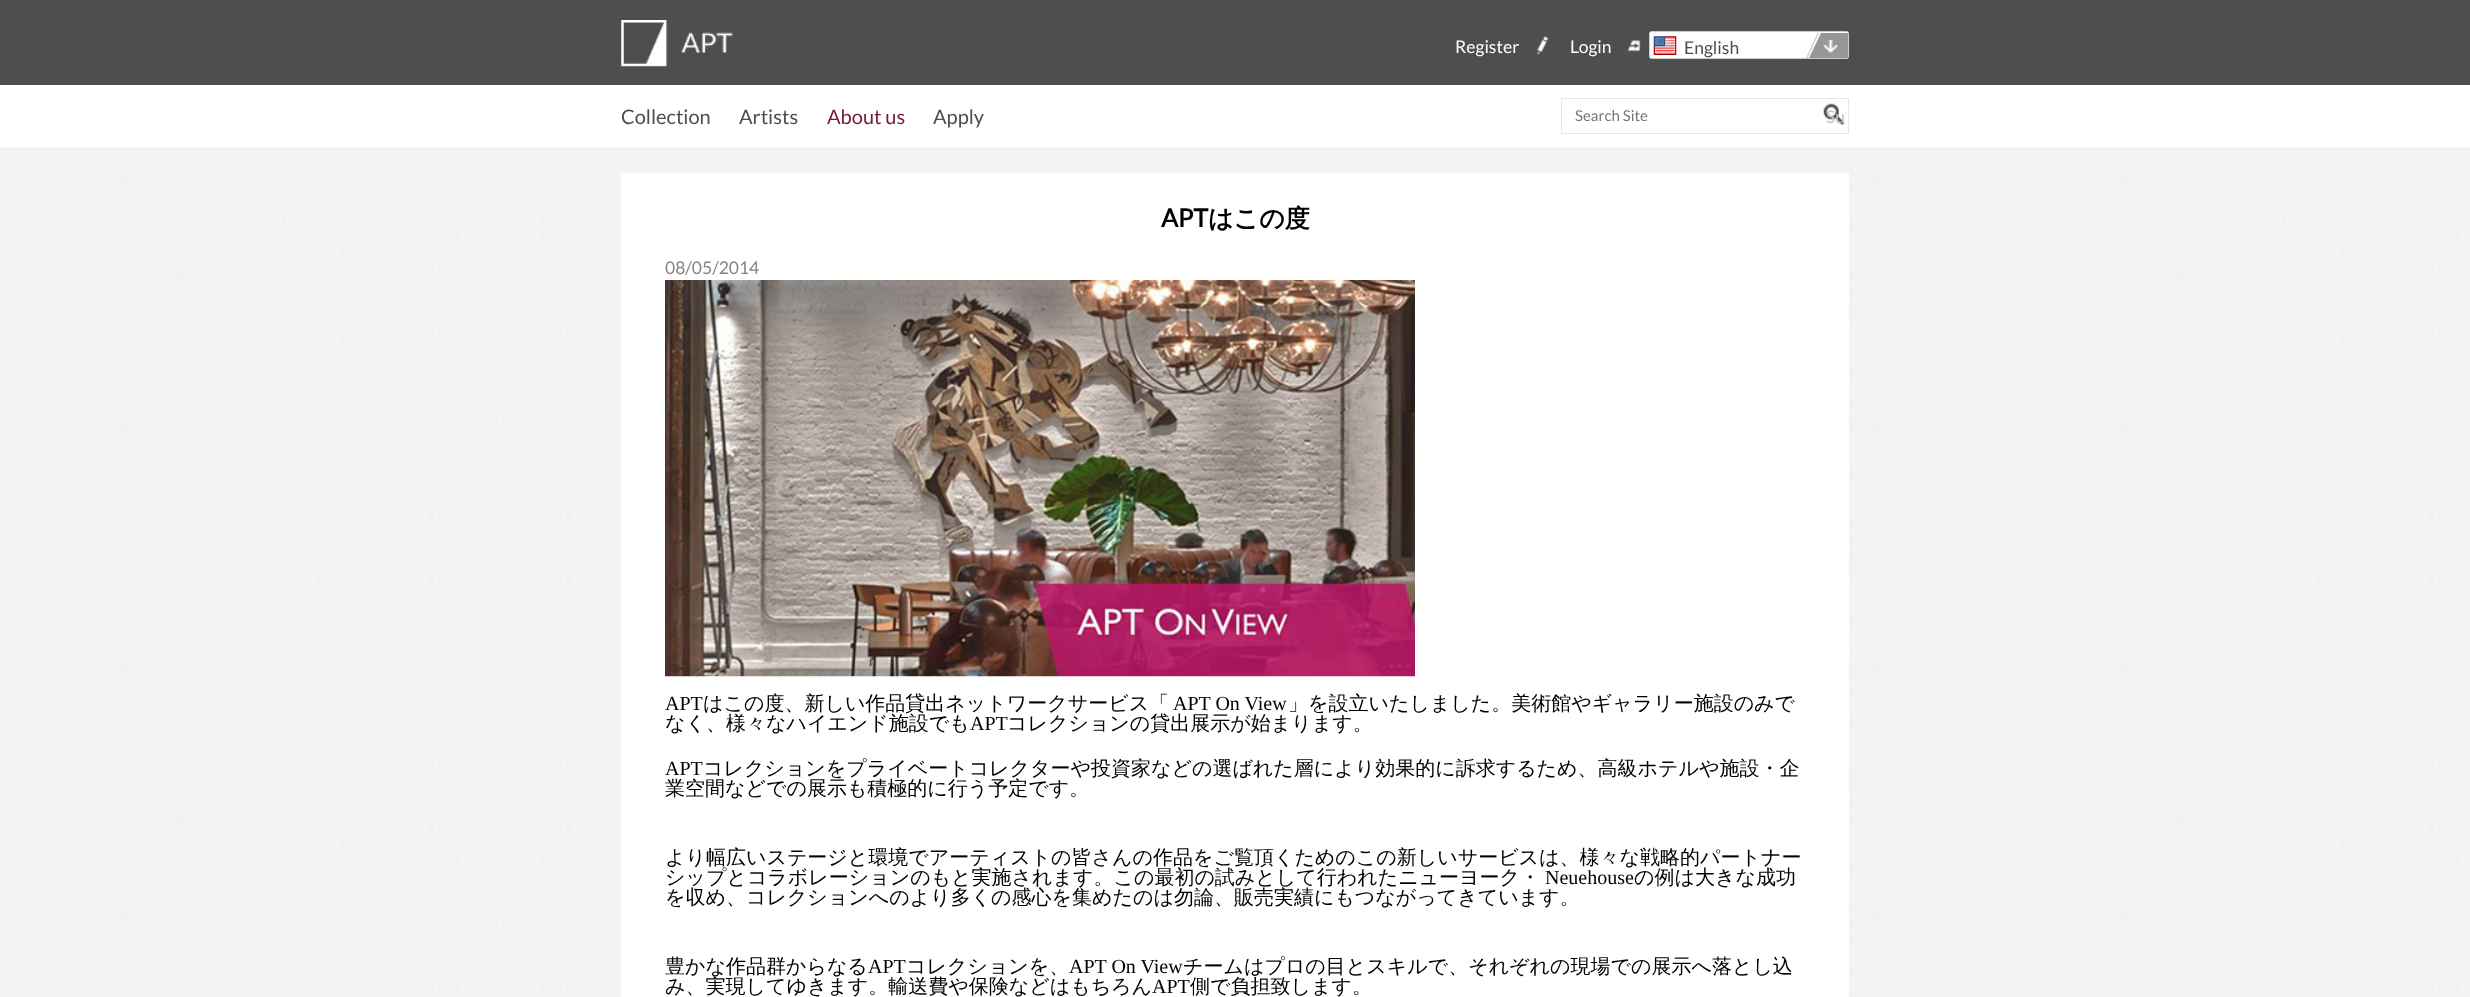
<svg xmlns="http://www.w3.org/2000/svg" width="2470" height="997">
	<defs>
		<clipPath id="clip1"><rect x="1650" y="33" width="198" height="25" rx="1" /></clipPath>
	</defs>
	<rect width="100%" height="100%" fill="#FFFFFF" />
	<rect x="0" y="0" width="2470" height="85" fill="#4F4E4E" />
	<image x="621" y="20" width="112" height="47" href="assets/img1.png" />
	<text x="1455" y="53" font-family="Lato" font-size="17.5" fill="#FFFFFF">Register</text>
	<image x="1537" y="36" width="11" height="18" href="assets/img2.png" />
	<text x="1570" y="53" font-family="Lato" font-size="17.5" fill="#FFFFFF">Login</text>
	<image x="1627" y="40" width="14" height="12" href="assets/img3.png" />
	<rect x="1649.5" y="31.5" width="199" height="27" rx="2" fill="#FFFFFF" stroke="#CCCCCC" />
	<path d="M1809 58L1821 33H1847C1847.5 33 1848 33.5 1848 34V57C1848 57.5 1847.5 58 1847 58Z" fill="#979797" />
	<g clip-path="url(#clip1)">
		<path d="M1639-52.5L1819 31.5L1777.5 121L1597.5 37Z" fill="none" stroke="#CBCBCB" stroke-width="1.3" />
	</g>
	<image x="1653" y="36" width="24" height="19" href="assets/img4.png" />
	<text x="1684" y="54" font-family="Lato" font-size="17.5" fill="#4D4D4D">English</text>
	<image x="1823" y="40" width="15" height="13" href="assets/img5.png" />
	<g font-family="Lato" font-size="20" fill="#4D4D4D">
		<text x="621" y="124">Collection</text>
		<text x="739" y="124">Artists</text>
	</g>
	<text x="827" y="124" font-family="Lato" font-size="20" fill="#771936">About us</text>
	<text x="933" y="124" font-family="Lato" font-size="20" fill="#4D4D4D">Apply</text>
	<rect x="1561.5" y="98.5" width="287" height="35" fill="none" stroke="#E6E6E6" />
	<text x="1575" y="121" font-family="Lato" font-size="15" fill="#757575">Search Site</text>
	<image x="1823" y="103" width="22" height="23" href="assets/img6.png" />
	<text x="1826" y="123" font-family="Lato" font-size="17.5" fill="#C3C3C3">Su</text>
	<image x="0" y="147" width="2470" height="26" href="assets/img7.png" />
	<image x="0" y="172" width="2470" height="825" href="assets/img8.png" />
	<rect x="621" y="173" width="1228" height="824" fill="#FFFFFF" />
	<text x="1161" y="227" font-family="Lato" font-size="25" font-weight="700" fill="#000000">APT</text>
	<text x="1208" y="227" font-family="WenQuanYi Zen Hei" font-size="25" font-weight="700" fill="#000000">はこの度</text>
	<text x="665" y="274" font-family="Lato" font-size="17.5" fill="#838383">08/05/2014</text>
	<image x="665" y="280" width="750" height="397" href="assets/img9.png" />
	<text x="665" y="710" font-family="Liberation Serif" font-size="20" fill="#000000">APT</text>
	<text x="703" y="710" font-family="WenQuanYi Zen Hei" font-size="20" font-weight="500" fill="#000000">はこの度、新しい作品貸出ネットワークサービス「</text>
	<text x="1173" y="710" font-family="Liberation Serif" font-size="20" fill="#000000">APT On View</text>
	<g font-family="WenQuanYi Zen Hei" font-size="20" font-weight="500" fill="#000000">
		<text x="1288" y="710">」を設立いたしました。美術館やギャラリー施設のみで</text>
		<text x="665" y="730">なく、様々なハイエンド施設でも</text>
	</g>
	<text x="970" y="730" font-family="Liberation Serif" font-size="20" fill="#000000">APT</text>
	<text x="1007" y="730" font-family="WenQuanYi Zen Hei" font-size="20" font-weight="500" fill="#000000">コレクションの貸出展示が始まります。</text>
	<text x="665" y="775" font-family="Liberation Serif" font-size="20" fill="#000000">APT</text>
	<g font-family="WenQuanYi Zen Hei" font-size="20" font-weight="500" fill="#000000">
		<text x="703" y="775">コレクションをプライベートコレクターや投資家などの選ばれた層により効果的に訴求するため、高級ホテルや施設・企</text>
		<text x="665" y="795">業空間などでの展示も積極的に行う予定です。</text>
		<text x="665" y="864">より幅広いステージと環境でアーティストの皆さんの作品をご覧頂くためのこの新しいサービスは、様々な戦略的パートナー</text>
		<text x="665" y="884">シップとコラボレーションのもと実施されます。この最初の試みとして行われたニューヨーク・</text>
	</g>
	<text x="1545" y="884" font-family="Liberation Serif" font-size="20" fill="#000000">Neuehouse</text>
	<g font-family="WenQuanYi Zen Hei" font-size="20" font-weight="500" fill="#000000">
		<text x="1634" y="884">の例は大きな成功</text>
		<text x="665" y="904">を収め、コレクションへのより多くの感心を集めたのは勿論、販売実績にもつながってきています。</text>
		<text x="665" y="973">豊かな作品群からなる</text>
	</g>
	<text x="868" y="973" font-family="Liberation Serif" font-size="20" fill="#000000">APT</text>
	<text x="906" y="973" font-family="WenQuanYi Zen Hei" font-size="20" font-weight="500" fill="#000000">コレクションを、</text>
	<text x="1069" y="973" font-family="Liberation Serif" font-size="20" fill="#000000">APT On View</text>
	<g font-family="WenQuanYi Zen Hei" font-size="20" font-weight="500" fill="#000000">
		<text x="1183" y="973">チームはプロの目とスキルで、それぞれの現場での展示へ落とし込</text>
		<text x="665" y="993">み、実現してゆきます。輸送費や保険などはもちろん</text>
	</g>
	<text x="1152" y="993" font-family="Liberation Serif" font-size="20" fill="#000000">APT</text>
	<text x="1190" y="993" font-family="WenQuanYi Zen Hei" font-size="20" font-weight="500" fill="#000000">側で負担致します。</text>
</svg>
